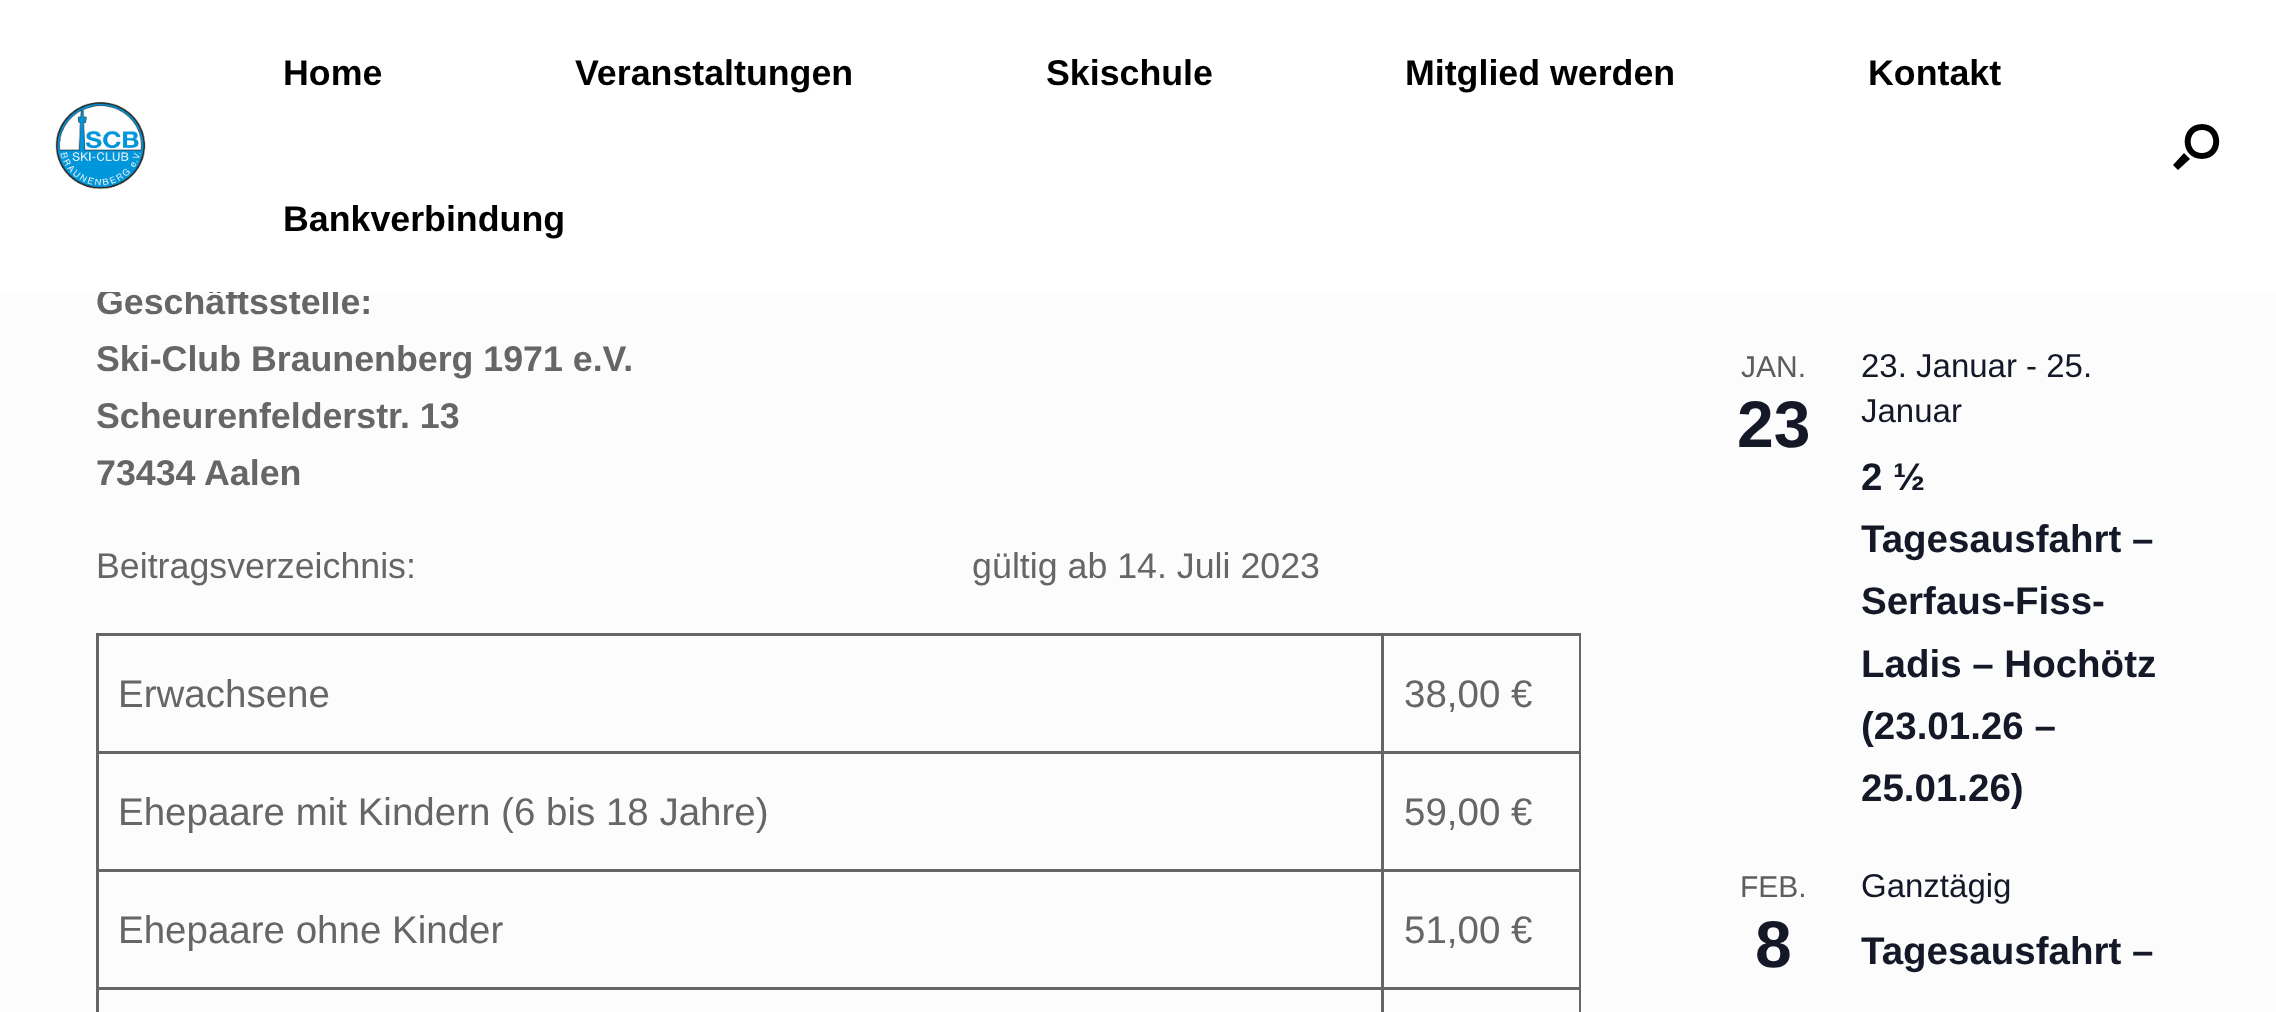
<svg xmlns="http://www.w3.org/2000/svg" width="2276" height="1012">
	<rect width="100%" height="100%" fill="#FCFCFC" />
	<text x="96" y="314" font-family="Liberation Sans" font-size="35.75" font-weight="700" fill="#666666">Geschäftsstelle:</text>
	<rect x="0" y="0" width="2276" height="292" fill="#FFFFFF" />
	<image x="55" y="102" width="91" height="88" href="assets/img1.png" />
	<g font-family="Liberation Sans" font-size="35.75" font-weight="700" fill="#000000">
		<text x="283" y="85">Home</text>
		<text x="575" y="85">Veranstaltungen</text>
		<text x="1046" y="85">Skischule</text>
		<text x="1405" y="85">Mitglied werden</text>
		<text x="1868" y="85">Kontakt</text>
		<text x="283" y="231">Bankverbindung</text>
	</g>
	<path d="M2202 130C2217 130 2217 153 2202 153C2187 153 2187 130 2202 130ZM2202 124C2179 124 2179 159 2202 159C2225 159 2225 124 2202 124ZM2184 153L2190 159L2178 170L2173 165Z" fill="#000000" />
	<g font-family="Liberation Sans" font-size="35.75" font-weight="700" fill="#666666">
		<text x="96" y="371">Ski-Club Braunenberg 1971 e.V.</text>
		<text x="96" y="428">Scheurenfelderstr. 13</text>
		<text x="96" y="485">73434 Aalen</text>
	</g>
	<text x="96" y="578" font-family="Liberation Sans" font-size="35.75" fill="#666666" xml:space="preserve">Beitragsverzeichnis:                                                        gültig ab 14. Juli 2023</text>
	<rect x="1381" y="633" width="200" height="3" fill="#666666" />
	<rect x="1381" y="751" width="200" height="3" fill="#666666" />
	<rect x="1381" y="869" width="200" height="3" fill="#666666" />
	<rect x="1381" y="987" width="200" height="3" fill="#666666" />
	<rect x="1381" y="987" width="3" height="25" fill="#666666" />
	<rect x="96" y="987" width="1287" height="3" fill="#666666" />
	<rect x="1381" y="869" width="3" height="121" fill="#666666" />
	<rect x="96" y="869" width="1287" height="3" fill="#666666" />
	<rect x="1381" y="751" width="3" height="121" fill="#666666" />
	<rect x="96" y="751" width="1287" height="3" fill="#666666" />
	<rect x="1381" y="633" width="3" height="121" fill="#666666" />
	<rect x="96" y="633" width="1287" height="3" fill="#666666" />
	<rect x="96" y="987" width="3" height="25" fill="#666666" />
	<rect x="96" y="869" width="3" height="121" fill="#666666" />
	<rect x="96" y="751" width="3" height="121" fill="#666666" />
	<rect x="96" y="633" width="3" height="121" fill="#666666" />
	<text x="118" y="707" font-family="Liberation Sans" font-size="38.5" fill="#666666">Erwachsene</text>
	<rect x="1579" y="987" width="2" height="25" fill="#666666" />
	<rect x="1579" y="869" width="2" height="121" fill="#666666" />
	<rect x="1579" y="751" width="2" height="121" fill="#666666" />
	<rect x="1579" y="633" width="2" height="121" fill="#666666" />
	<g font-family="Liberation Sans" font-size="38.5" fill="#666666">
		<text x="1404" y="707">38,00 €</text>
		<text x="118" y="825">Ehepaare mit Kindern (6 bis 18 Jahre)</text>
		<text x="1404" y="825">59,00 €</text>
		<text x="118" y="943">Ehepaare ohne Kinder</text>
		<text x="1404" y="943">51,00 €</text>
	</g>
	<text x="1741" y="377" font-family="Liberation Sans" font-size="30" fill="#5D5D5D">JAN.</text>
	<text x="1737" y="447" font-family="Liberation Sans" font-size="66" font-weight="700" fill="#141827">23</text>
	<g font-family="Liberation Sans" font-size="33" fill="#141827">
		<text x="1861" y="377">23. Januar - 25.</text>
		<text x="1861" y="422">Januar</text>
	</g>
	<g font-family="Liberation Sans" font-size="38.5" font-weight="700" fill="#141827">
		<text x="1861" y="490">2 ½</text>
		<text x="1861" y="552">Tagesausfahrt –</text>
		<text x="1861" y="614">Serfaus-Fiss-</text>
		<text x="1861" y="677">Ladis – Hochötz</text>
		<text x="1861" y="739">(23.01.26 –</text>
		<text x="1861" y="801">25.01.26)</text>
	</g>
	<text x="1740" y="897" font-family="Liberation Sans" font-size="30" fill="#5D5D5D">FEB.</text>
	<text x="1755" y="967" font-family="Liberation Sans" font-size="66" font-weight="700" fill="#141827">8</text>
	<text x="1861" y="897" font-family="Liberation Sans" font-size="33" fill="#141827">Ganztägig</text>
	<text x="1861" y="964" font-family="Liberation Sans" font-size="38.5" font-weight="700" fill="#141827">Tagesausfahrt –</text>
</svg>
